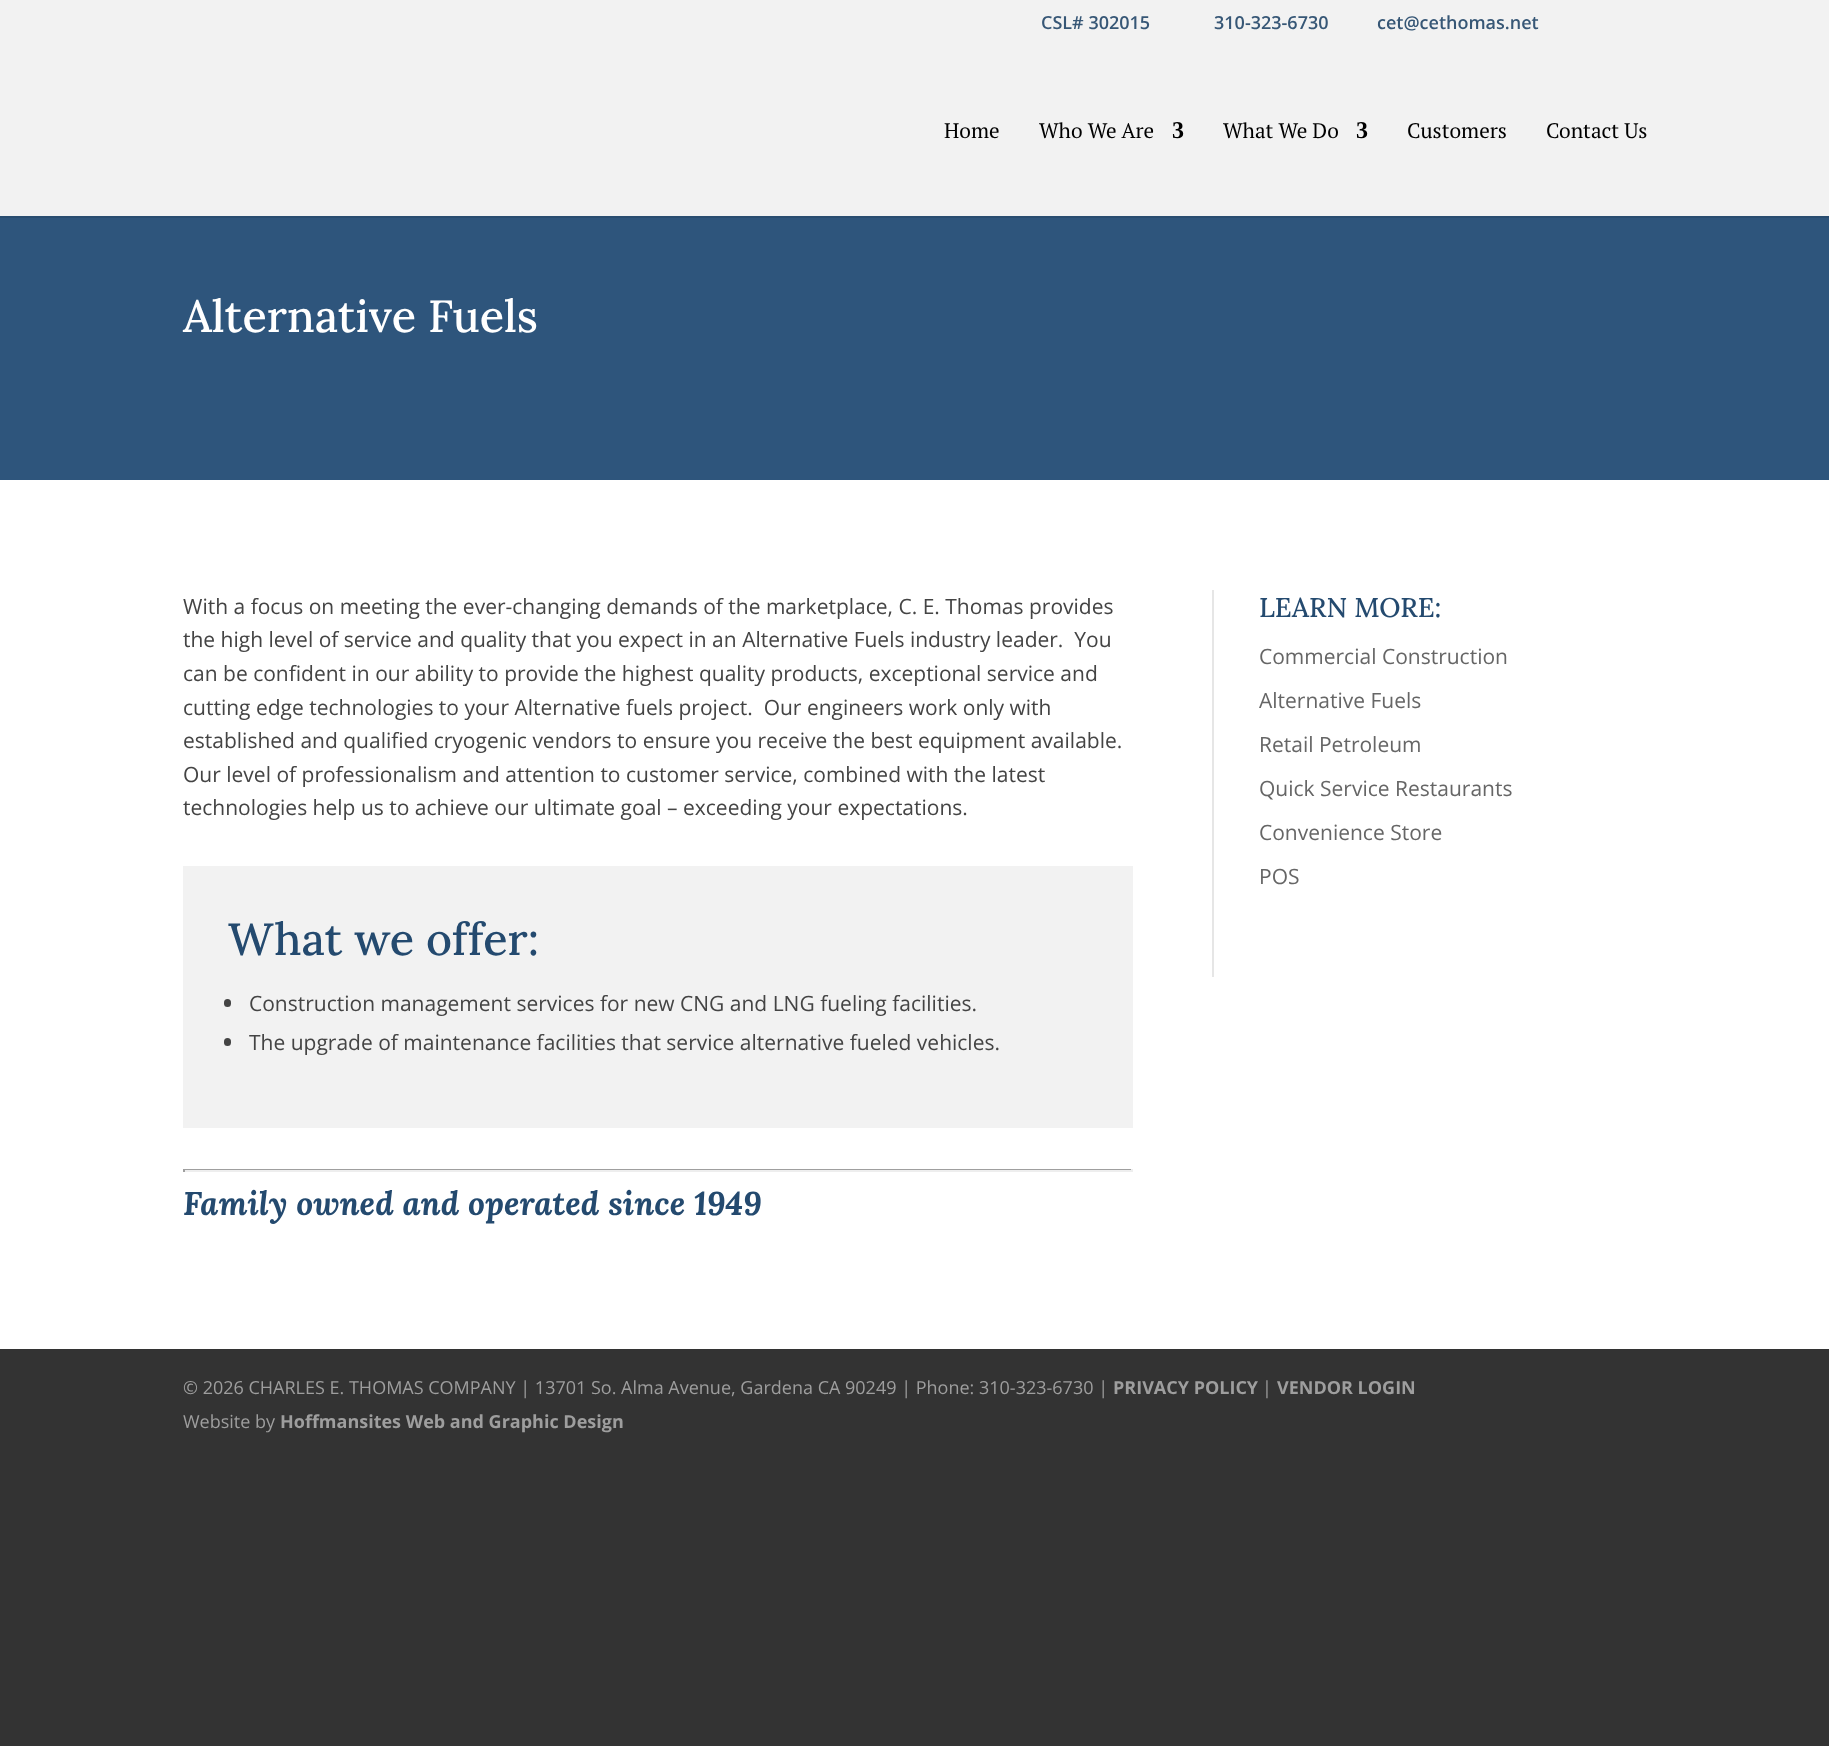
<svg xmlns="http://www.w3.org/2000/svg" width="1829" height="1746">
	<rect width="100%" height="100%" fill="#333333" />
	<rect x="0" y="0" width="1829" height="216" fill="#F2F2F2" />
	<g font-family="Open Sans" font-size="18" font-weight="600" fill="#375776">
		<text x="1041" y="29">CSL# 302015</text>
		<text x="1214" y="29">310-323-6730</text>
		<text x="1377" y="29">cet@cethomas.net</text>
	</g>
	<rect x="0" y="216" width="1829" height="2" fill="#294D70" />
	<g font-family="PT Serif" font-size="21" fill="#000000">
		<text x="944" y="138">Home</text>
		<text x="1039" y="138">Who We Are</text>
	</g>
	<text x="1172" y="138" font-family="Liberation Serif" font-size="24" font-weight="700" fill="#000000">3</text>
	<text x="1223" y="138" font-family="PT Serif" font-size="21" fill="#000000">What We Do</text>
	<text x="1356" y="138" font-family="Liberation Serif" font-size="24" font-weight="700" fill="#000000">3</text>
	<g font-family="PT Serif" font-size="21" fill="#000000">
		<text x="1407" y="138">Customers</text>
		<text x="1546" y="138">Contact Us</text>
	</g>
	<rect x="0" y="218" width="1829" height="262" fill="#2E557C" />
	<text x="183" y="332" font-family="Lora" font-size="45" font-weight="500" fill="#FFFFFF">Alternative Fuels</text>
	<rect x="0" y="480" width="1829" height="869" fill="#FFFFFF" />
	<g font-family="Open Sans" font-size="21" fill="#444444">
		<text x="183" y="614">With a focus on meeting the ever-changing demands of the marketplace, C. E. Thomas provides</text>
		<text x="183" y="647" xml:space="preserve">the high level of service and quality that you expect in an Alternative Fuels industry leader.  You</text>
		<text x="183" y="681">can be confident in our ability to provide the highest quality products, exceptional service and</text>
		<text x="183" y="715" xml:space="preserve">cutting edge technologies to your Alternative fuels project.  Our engineers work only with</text>
		<text x="183" y="748">established and qualified cryogenic vendors to ensure you receive the best equipment available.</text>
		<text x="183" y="782">Our level of professionalism and attention to customer service, combined with the latest</text>
		<text x="183" y="815">technologies help us to achieve our ultimate goal – exceeding your expectations.</text>
	</g>
	<rect x="183" y="866" width="950" height="262" fill="#F2F2F2" />
	<text x="228" y="955" font-family="Lora" font-size="45" font-weight="500" fill="#244A6F">What we offer:</text>
	<rect x="224" y="999" width="7" height="8" rx="3.5" fill="#444444" />
	<text x="249" y="1011" font-family="Open Sans" font-size="21" fill="#444444">Construction management services for new CNG and LNG fueling facilities.</text>
	<rect x="224" y="1038" width="7" height="8" rx="3.5" fill="#444444" />
	<text x="249" y="1050" font-family="Open Sans" font-size="21" fill="#444444">The upgrade of maintenance facilities that service alternative fueled vehicles.</text>
	<rect x="183" y="1169" width="950" height="1" fill="#9F9F9F" />
	<rect x="1131" y="1169" width="2" height="3" fill="#EEEEEE" />
	<rect x="183" y="1170" width="950" height="2" fill="#EEEEEE" />
	<rect x="183" y="1169" width="2" height="3" fill="#9F9F9F" />
	<text x="183" y="1215" font-family="Lora" font-size="33" font-weight="700" font-style="italic" fill="#244A6F">Family owned and operated since 1949</text>
	<rect x="1212" y="590" width="2" height="387" fill="#E6E6E6" />
	<text x="1259" y="617" font-family="Lora" font-size="27" font-weight="500" fill="#244A6F">LEARN MORE:</text>
	<g font-family="Open Sans" font-size="21" fill="#666666">
		<text x="1259" y="664">Commercial Construction</text>
		<text x="1259" y="708">Alternative Fuels</text>
		<text x="1259" y="752">Retail Petroleum</text>
		<text x="1259" y="796">Quick Service Restaurants</text>
		<text x="1259" y="840">Convenience Store</text>
		<text x="1259" y="884">POS</text>
	</g>
	<text x="183" y="1394" font-family="Open Sans" font-size="18" fill="#9E9E9E">© 2026 CHARLES E. THOMAS COMPANY | 13701 So. Alma Avenue, Gardena CA 90249 | Phone: 310-323-6730 |</text>
	<text x="1113" y="1394" font-family="Open Sans" font-size="18" font-weight="700" fill="#9E9E9E">PRIVACY POLICY</text>
	<text x="1262" y="1394" font-family="Open Sans" font-size="18" fill="#9E9E9E">|</text>
	<text x="1277" y="1394" font-family="Open Sans" font-size="18" font-weight="700" fill="#9E9E9E">VENDOR LOGIN</text>
	<text x="183" y="1428" font-family="Open Sans" font-size="18" fill="#9E9E9E">Website by</text>
	<text x="280" y="1428" font-family="Open Sans" font-size="18" font-weight="700" fill="#9E9E9E">Hoffmansites Web and Graphic Design</text>
</svg>
